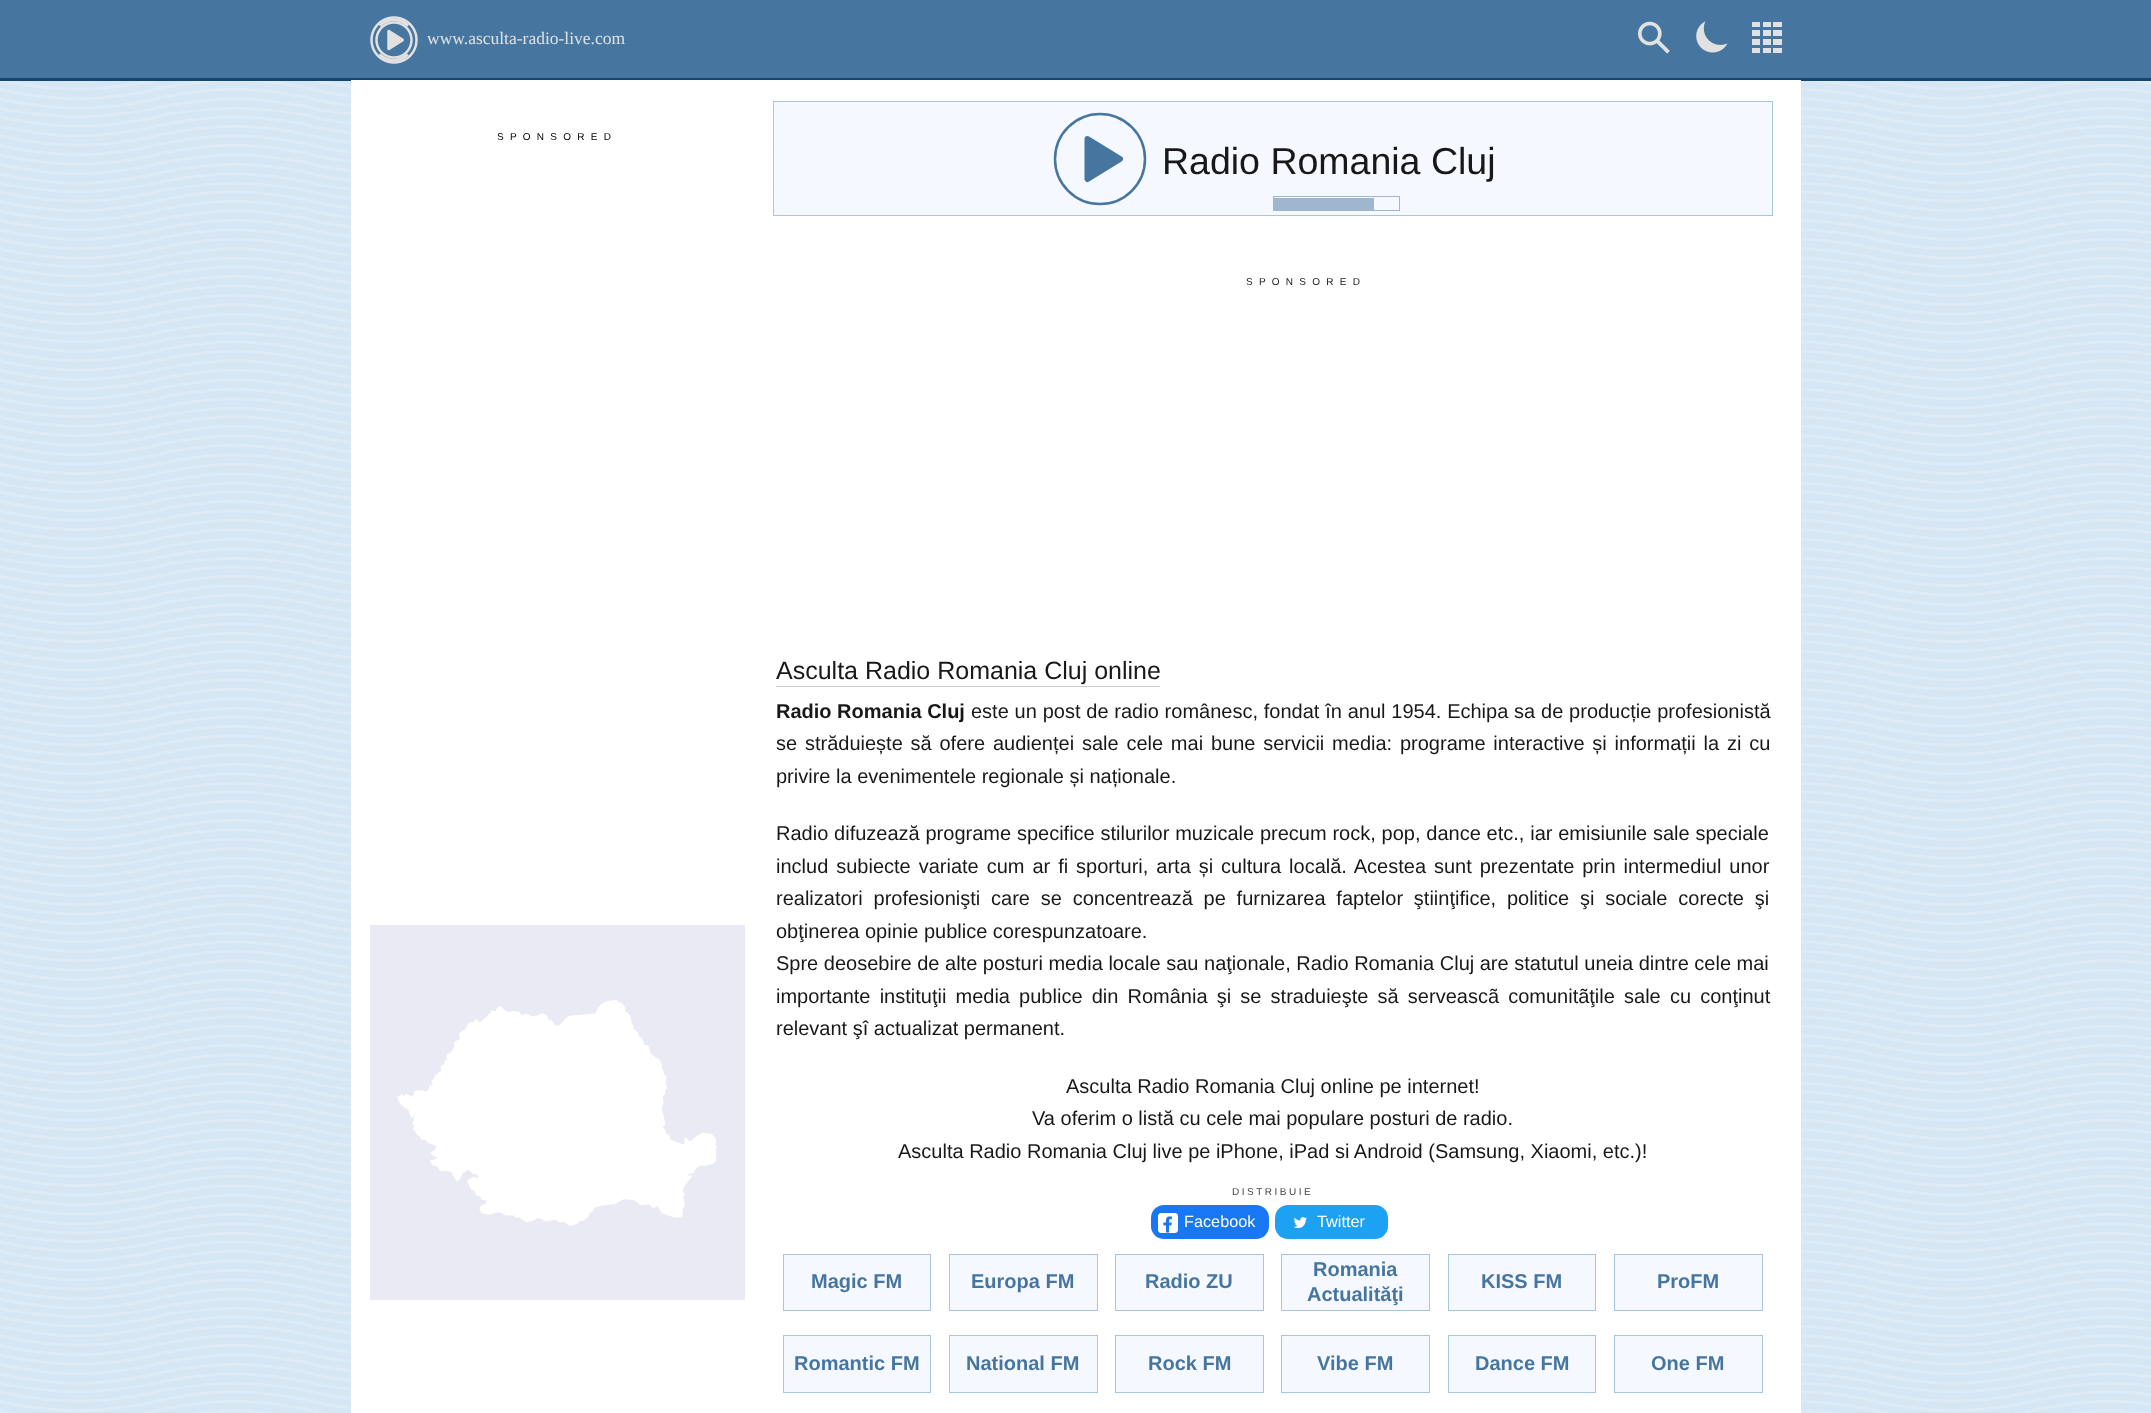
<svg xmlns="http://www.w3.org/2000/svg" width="2151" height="1413">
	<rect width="100%" height="100%" fill="#D5E6F4" />
	<image x="0" y="81" width="2151" height="1332" href="assets/img1.png" />
	<rect x="0" y="0" width="2151" height="78" fill="#46769F" />
	<rect x="0" y="78" width="2151" height="3" fill="#16466F" />
	<image x="370" y="16" width="48" height="48" href="assets/img2.png" />
	<text x="427" y="44" font-family="Liberation Serif" font-size="17.5" fill="#E1E1E1">www.asculta-radio-live.com</text>
	<image x="1638" y="21" width="32" height="33" href="assets/img3.png" />
	<image x="1696" y="21" width="32" height="32" href="assets/img4.png" />
	<image x="1752" y="22" width="30" height="31" href="assets/img5.png" />
	<rect x="351" y="80" width="1450" height="1333" fill="#FFFFFF" />
	<text x="497" y="140" font-family="Liberation Sans" font-size="10" letter-spacing="6.25" fill="#000000">SPONSORED</text>
	<rect x="370" y="925" width="375" height="375" fill="#EAEAF4" />
	<image x="397" y="999" width="321" height="227" href="assets/img6.png" />
	<rect x="773.5" y="101.5" width="999" height="114" fill="#F6F8FF" stroke="#A6C6DF" />
	<image x="773" y="102" width="1" height="112" href="assets/img7.png" />
	<circle cx="1100" cy="159" r="45" fill="none" stroke="#46769F" stroke-width="2.5" />
	<path d="M1088 139L1120 159L1088 179Z" fill="#46769F" />
	<path d="M1087.5 139L1120 159L1087.5 179Z" fill="none" stroke="#46769F" stroke-width="6" stroke-linejoin="round" />
	<text x="1162" y="174" font-family="Liberation Sans" font-size="37.5" fill="#181818">Radio Romania Cluj</text>
	<rect x="1273.5" y="196.5" width="126" height="14" fill="none" stroke="#9EB7CF" />
	<rect x="1274" y="198" width="100" height="12" fill="#9EB7CF" />
	<text x="1246" y="285" font-family="Liberation Sans" font-size="10" letter-spacing="6.25" fill="#181818">SPONSORED</text>
	<rect x="776" y="686" width="384" height="1" fill="#CCCCCC" />
	<text x="776" y="679" font-family="Liberation Sans" font-size="25" fill="#181818">Asculta Radio Romania Cluj online</text>
	<text x="776" y="718" font-family="Liberation Sans" font-size="20" font-weight="700" fill="#181818">Radio Romania Cluj</text>
	<g font-family="Liberation Sans" font-size="20" fill="#181818">
		<text x="971" y="718" word-spacing="0.25">este un post de radio românesc, fondat în anul 1954. Echipa sa de producție profesionistă</text>
		<text x="776" y="750" word-spacing="2.25">se străduiește să ofere audienței sale cele mai bune servicii media: programe interactive și informații la zi cu</text>
		<text x="776" y="783">privire la evenimentele regionale și naționale.</text>
		<text x="776" y="840" word-spacing="0.25">Radio difuzează programe specifice stilurilor muzicale precum rock, pop, dance etc., iar emisiunile sale speciale</text>
		<text x="776" y="873" word-spacing="2.4">includ subiecte variate cum ar fi sporturi, arta și cultura locală. Acestea sunt prezentate prin intermediul unor</text>
		<text x="776" y="905" word-spacing="5.25">realizatori profesionişti care se concentrează pe furnizarea faptelor ştiinţifice, politice şi sociale corecte şi</text>
		<text x="776" y="938">obţinerea opinie publice corespunzatoare.</text>
		<text x="776" y="970">Spre deosebire de alte posturi media locale sau naţionale, Radio Romania Cluj are statutul uneia dintre cele mai</text>
		<text x="776" y="1003" word-spacing="3.6">importante instituţii media publice din România şi se straduieşte să serveascã comunitãţile sale cu conţinut</text>
		<text x="776" y="1035">relevant şî actualizat permanent.</text>
		<text x="1066" y="1093">Asculta Radio Romania Cluj online pe internet!</text>
		<text x="1032" y="1125">Va oferim o listă cu cele mai populare posturi de radio.</text>
		<text x="898" y="1158">Asculta Radio Romania Cluj live pe iPhone, iPad si Android (Samsung, Xiaomi, etc.)!</text>
	</g>
	<text x="1232" y="1195" font-family="Liberation Sans" font-size="10" letter-spacing="2.5" fill="#444444">DISTRIBUIE</text>
	<rect x="1151" y="1205" width="118" height="34" rx="13" fill="#1877F2" />
	<image x="1158" y="1213" width="20" height="20" href="assets/img8.png" />
	<text x="1184" y="1227" font-family="Liberation Sans" font-size="16.25" fill="#FFFFFF">Facebook</text>
	<rect x="1275" y="1205" width="113" height="34" rx="13" fill="#1DA1F2" />
	<image x="1293" y="1217" width="14" height="12" href="assets/img9.png" />
	<text x="1317" y="1227" font-family="Liberation Sans" font-size="16.25" fill="#FFFFFF">Twitter</text>
	<rect x="783.5" y="1254.5" width="147" height="56" fill="#F6F8FF" stroke="#A6C6DF" />
	<text x="811" y="1288" font-family="Liberation Sans" font-size="20" font-weight="700" fill="#46769F">Magic FM</text>
	<rect x="949.5" y="1254.5" width="148" height="56" fill="#F6F8FF" stroke="#A6C6DF" />
	<text x="971" y="1288" font-family="Liberation Sans" font-size="20" font-weight="700" fill="#46769F">Europa FM</text>
	<rect x="1115.5" y="1254.5" width="148" height="56" fill="#F6F8FF" stroke="#A6C6DF" />
	<text x="1145" y="1288" font-family="Liberation Sans" font-size="20" font-weight="700" fill="#46769F">Radio ZU</text>
	<rect x="1281.5" y="1254.5" width="148" height="56" fill="#F6F8FF" stroke="#A6C6DF" />
	<g font-family="Liberation Sans" font-size="20" font-weight="700" fill="#46769F">
		<text x="1313" y="1276">Romania</text>
		<text x="1307" y="1301">Actualităţi</text>
	</g>
	<rect x="1448.5" y="1254.5" width="147" height="56" fill="#F6F8FF" stroke="#A6C6DF" />
	<text x="1481" y="1288" font-family="Liberation Sans" font-size="20" font-weight="700" fill="#46769F">KISS FM</text>
	<rect x="1614.5" y="1254.5" width="148" height="56" fill="#F6F8FF" stroke="#A6C6DF" />
	<text x="1657" y="1288" font-family="Liberation Sans" font-size="20" font-weight="700" fill="#46769F">ProFM</text>
	<rect x="783.5" y="1335.5" width="147" height="57" fill="#F6F8FF" stroke="#A6C6DF" />
	<text x="794" y="1370" font-family="Liberation Sans" font-size="20" font-weight="700" fill="#46769F">Romantic FM</text>
	<rect x="949.5" y="1335.5" width="148" height="57" fill="#F6F8FF" stroke="#A6C6DF" />
	<text x="966" y="1370" font-family="Liberation Sans" font-size="20" font-weight="700" fill="#46769F">National FM</text>
	<rect x="1115.5" y="1335.5" width="148" height="57" fill="#F6F8FF" stroke="#A6C6DF" />
	<text x="1148" y="1370" font-family="Liberation Sans" font-size="20" font-weight="700" fill="#46769F">Rock FM</text>
	<rect x="1281.5" y="1335.5" width="148" height="57" fill="#F6F8FF" stroke="#A6C6DF" />
	<text x="1317" y="1370" font-family="Liberation Sans" font-size="20" font-weight="700" fill="#46769F">Vibe FM</text>
	<rect x="1448.5" y="1335.5" width="147" height="57" fill="#F6F8FF" stroke="#A6C6DF" />
	<text x="1475" y="1370" font-family="Liberation Sans" font-size="20" font-weight="700" fill="#46769F">Dance FM</text>
	<rect x="1614.5" y="1335.5" width="148" height="57" fill="#F6F8FF" stroke="#A6C6DF" />
	<text x="1651" y="1370" font-family="Liberation Sans" font-size="20" font-weight="700" fill="#46769F">One FM</text>
</svg>
